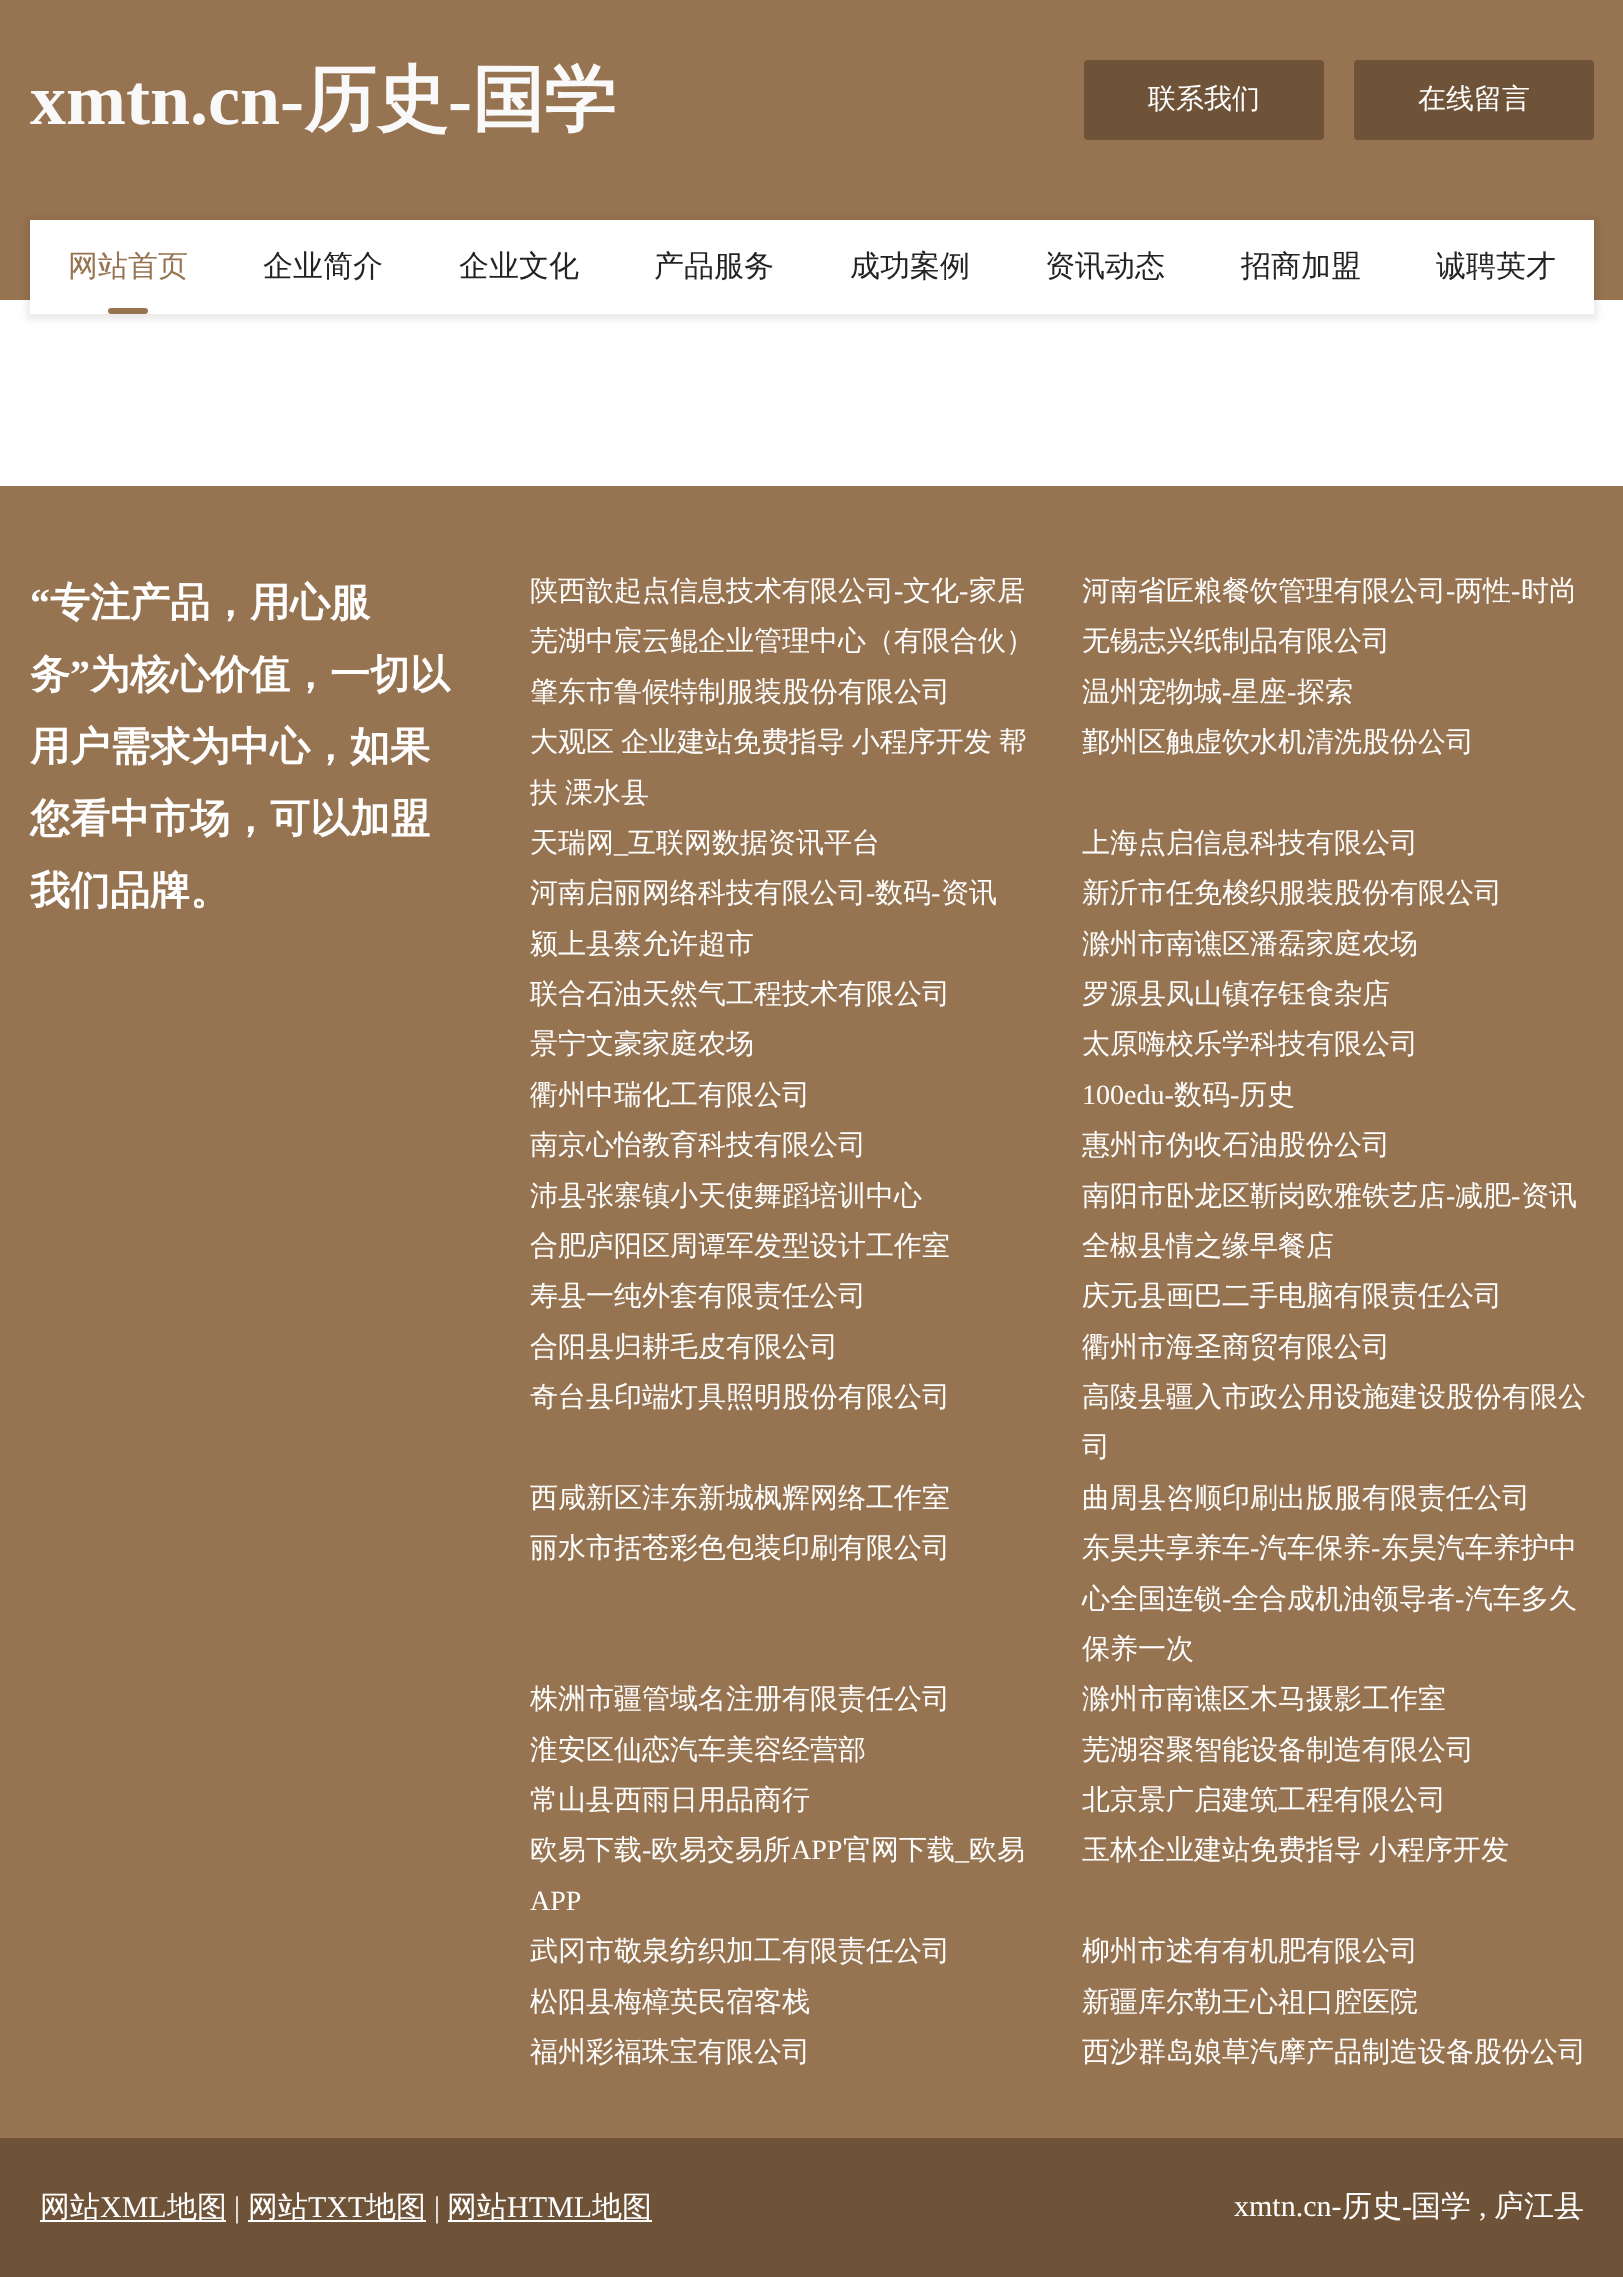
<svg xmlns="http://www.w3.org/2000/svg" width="1623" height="2277">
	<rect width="100%" height="100%" fill="#FFFFFF" />
	<rect x="0" y="0" width="1623" height="300" fill="#977451" />
	<text x="30" y="124" font-family="Liberation Serif" font-size="72" font-weight="700" fill="#F9F9F9">xmtn.cn-</text>
	<text x="304" y="124" font-family="WenQuanYi Zen Hei" font-size="72" font-weight="700" fill="#F9F9F9">历史</text>
	<text x="448" y="124" font-family="Liberation Serif" font-size="72" font-weight="700" fill="#F9F9F9">-</text>
	<text x="472" y="124" font-family="WenQuanYi Zen Hei" font-size="72" font-weight="700" fill="#F9F9F9">国学</text>
	<rect x="1084" y="60" width="240" height="80" rx="4" fill="#6F5338" />
	<text x="1148" y="108" font-family="WenQuanYi Zen Hei" font-size="28" font-weight="500" fill="#FFFFFF">联系我们</text>
	<rect x="1354" y="60" width="240" height="80" rx="4" fill="#6F5338" />
	<text x="1418" y="108" font-family="WenQuanYi Zen Hei" font-size="28" font-weight="500" fill="#FFFFFF">在线留言</text>
	<rect x="26" y="218" width="1572" height="102" fill="#000000" fill-opacity="0.08" filter="blur(3px)" />
	<rect x="30" y="220" width="1564" height="94" fill="#FFFFFF" />
	<text x="68" y="276" font-family="WenQuanYi Zen Hei" font-size="30" font-weight="500" fill="#977451">网站首页</text>
	<rect x="108" y="308" width="40" height="6" rx="3" fill="#977451" />
	<g font-family="WenQuanYi Zen Hei" font-size="30" font-weight="500" fill="#232323">
		<text x="263" y="276">企业简介</text>
		<text x="459" y="276">企业文化</text>
		<text x="654" y="276">产品服务</text>
		<text x="850" y="276">成功案例</text>
		<text x="1045" y="276">资讯动态</text>
		<text x="1241" y="276">招商加盟</text>
		<text x="1436" y="276">诚聘英才</text>
	</g>
	<rect x="0" y="486" width="1623" height="1652" fill="#977451" />
	<text x="30" y="616" font-family="Liberation Serif" font-size="40" font-weight="700" fill="#FFFFFF">“</text>
	<g font-family="WenQuanYi Zen Hei" font-size="40" font-weight="700" fill="#FFFFFF">
		<text x="50" y="616">专注产品，用心服</text>
		<text x="30" y="688">务</text>
	</g>
	<text x="70" y="688" font-family="Liberation Serif" font-size="40" font-weight="700" fill="#FFFFFF">”</text>
	<g font-family="WenQuanYi Zen Hei" font-size="40" font-weight="700" fill="#FFFFFF">
		<text x="90" y="688">为核心价值，一切以</text>
		<text x="30" y="760">用户需求为中心，如果</text>
		<text x="30" y="832">您看中市场，可以加盟</text>
		<text x="30" y="904">我们品牌。</text>
	</g>
	<text x="530" y="600" font-family="WenQuanYi Zen Hei" font-size="28" font-weight="500" fill="#FFFFFF">陕西歆起点信息技术有限公司</text>
	<text x="894" y="600" font-family="Liberation Serif" font-size="28" fill="#FFFFFF">-</text>
	<text x="903" y="600" font-family="WenQuanYi Zen Hei" font-size="28" font-weight="500" fill="#FFFFFF">文化</text>
	<text x="959" y="600" font-family="Liberation Serif" font-size="28" fill="#FFFFFF">-</text>
	<g font-family="WenQuanYi Zen Hei" font-size="28" font-weight="500" fill="#FFFFFF">
		<text x="969" y="600">家居</text>
		<text x="1082" y="600">河南省匠粮餐饮管理有限公司</text>
	</g>
	<text x="1446" y="600" font-family="Liberation Serif" font-size="28" fill="#FFFFFF">-</text>
	<text x="1455" y="600" font-family="WenQuanYi Zen Hei" font-size="28" font-weight="500" fill="#FFFFFF">两性</text>
	<text x="1511" y="600" font-family="Liberation Serif" font-size="28" fill="#FFFFFF">-</text>
	<g font-family="WenQuanYi Zen Hei" font-size="28" font-weight="500" fill="#FFFFFF">
		<text x="1521" y="600">时尚</text>
		<text x="530" y="650">芜湖中宸云鲲企业管理中心（有限合伙）</text>
		<text x="1082" y="650">无锡志兴纸制品有限公司</text>
		<text x="530" y="701">肇东市鲁候特制服装股份有限公司</text>
		<text x="1082" y="701">温州宠物城</text>
	</g>
	<text x="1222" y="701" font-family="Liberation Serif" font-size="28" fill="#FFFFFF">-</text>
	<text x="1231" y="701" font-family="WenQuanYi Zen Hei" font-size="28" font-weight="500" fill="#FFFFFF">星座</text>
	<text x="1287" y="701" font-family="Liberation Serif" font-size="28" fill="#FFFFFF">-</text>
	<g font-family="WenQuanYi Zen Hei" font-size="28" font-weight="500" fill="#FFFFFF">
		<text x="1297" y="701">探索</text>
		<text x="530" y="751" word-spacing="-1.5">大观区 企业建站免费指导 小程序开发 帮</text>
		<text x="530" y="802" word-spacing="-1.5">扶 溧水县</text>
		<text x="1082" y="751">鄞州区触虚饮水机清洗股份公司</text>
		<text x="530" y="852">天瑞网</text>
	</g>
	<text x="614" y="852" font-family="Liberation Serif" font-size="28" fill="#FFFFFF">_</text>
	<g font-family="WenQuanYi Zen Hei" font-size="28" font-weight="500" fill="#FFFFFF">
		<text x="628" y="852">互联网数据资讯平台</text>
		<text x="1082" y="852">上海点启信息科技有限公司</text>
		<text x="530" y="902">河南启丽网络科技有限公司</text>
	</g>
	<text x="866" y="902" font-family="Liberation Serif" font-size="28" fill="#FFFFFF">-</text>
	<text x="875" y="902" font-family="WenQuanYi Zen Hei" font-size="28" font-weight="500" fill="#FFFFFF">数码</text>
	<text x="931" y="902" font-family="Liberation Serif" font-size="28" fill="#FFFFFF">-</text>
	<g font-family="WenQuanYi Zen Hei" font-size="28" font-weight="500" fill="#FFFFFF">
		<text x="941" y="902">资讯</text>
		<text x="1082" y="902">新沂市任免梭织服装股份有限公司</text>
		<text x="530" y="953">颍上县蔡允许超市</text>
		<text x="1082" y="953">滁州市南谯区潘磊家庭农场</text>
		<text x="530" y="1003">联合石油天然气工程技术有限公司</text>
		<text x="1082" y="1003">罗源县凤山镇存钰食杂店</text>
		<text x="530" y="1053">景宁文豪家庭农场</text>
		<text x="1082" y="1053">太原嗨校乐学科技有限公司</text>
		<text x="530" y="1104">衢州中瑞化工有限公司</text>
	</g>
	<text x="1082" y="1104" font-family="Liberation Serif" font-size="28" fill="#FFFFFF">100edu-</text>
	<text x="1174" y="1104" font-family="WenQuanYi Zen Hei" font-size="28" font-weight="500" fill="#FFFFFF">数码</text>
	<text x="1230" y="1104" font-family="Liberation Serif" font-size="28" fill="#FFFFFF">-</text>
	<g font-family="WenQuanYi Zen Hei" font-size="28" font-weight="500" fill="#FFFFFF">
		<text x="1239" y="1104">历史</text>
		<text x="530" y="1154">南京心怡教育科技有限公司</text>
		<text x="1082" y="1154">惠州市伪收石油股份公司</text>
		<text x="530" y="1205">沛县张寨镇小天使舞蹈培训中心</text>
		<text x="1082" y="1205">南阳市卧龙区靳岗欧雅铁艺店</text>
	</g>
	<text x="1446" y="1205" font-family="Liberation Serif" font-size="28" fill="#FFFFFF">-</text>
	<text x="1455" y="1205" font-family="WenQuanYi Zen Hei" font-size="28" font-weight="500" fill="#FFFFFF">减肥</text>
	<text x="1511" y="1205" font-family="Liberation Serif" font-size="28" fill="#FFFFFF">-</text>
	<g font-family="WenQuanYi Zen Hei" font-size="28" font-weight="500" fill="#FFFFFF">
		<text x="1521" y="1205">资讯</text>
		<text x="530" y="1255">合肥庐阳区周谭军发型设计工作室</text>
		<text x="1082" y="1255">全椒县情之缘早餐店</text>
		<text x="530" y="1305">寿县一纯外套有限责任公司</text>
		<text x="1082" y="1305">庆元县画巴二手电脑有限责任公司</text>
		<text x="530" y="1356">合阳县归耕毛皮有限公司</text>
		<text x="1082" y="1356">衢州市海圣商贸有限公司</text>
		<text x="530" y="1406">奇台县印端灯具照明股份有限公司</text>
		<text x="1082" y="1406">高陵县疆入市政公用设施建设股份有限公</text>
		<text x="1082" y="1456">司</text>
		<text x="530" y="1507">西咸新区沣东新城枫辉网络工作室</text>
		<text x="1082" y="1507">曲周县咨顺印刷出版服有限责任公司</text>
		<text x="530" y="1557">丽水市括苍彩色包装印刷有限公司</text>
		<text x="1082" y="1557">东昊共享养车</text>
	</g>
	<text x="1250" y="1557" font-family="Liberation Serif" font-size="28" fill="#FFFFFF">-</text>
	<text x="1259" y="1557" font-family="WenQuanYi Zen Hei" font-size="28" font-weight="500" fill="#FFFFFF">汽车保养</text>
	<text x="1371" y="1557" font-family="Liberation Serif" font-size="28" fill="#FFFFFF">-</text>
	<g font-family="WenQuanYi Zen Hei" font-size="28" font-weight="500" fill="#FFFFFF">
		<text x="1381" y="1557">东昊汽车养护中</text>
		<text x="1082" y="1608">心全国连锁</text>
	</g>
	<text x="1222" y="1608" font-family="Liberation Serif" font-size="28" fill="#FFFFFF">-</text>
	<text x="1231" y="1608" font-family="WenQuanYi Zen Hei" font-size="28" font-weight="500" fill="#FFFFFF">全合成机油领导者</text>
	<text x="1455" y="1608" font-family="Liberation Serif" font-size="28" fill="#FFFFFF">-</text>
	<g font-family="WenQuanYi Zen Hei" font-size="28" font-weight="500" fill="#FFFFFF">
		<text x="1465" y="1608">汽车多久</text>
		<text x="1082" y="1658">保养一次</text>
		<text x="530" y="1708">株洲市疆管域名注册有限责任公司</text>
		<text x="1082" y="1708">滁州市南谯区木马摄影工作室</text>
		<text x="530" y="1759">淮安区仙恋汽车美容经营部</text>
		<text x="1082" y="1759">芜湖容聚智能设备制造有限公司</text>
		<text x="530" y="1809">常山县西雨日用品商行</text>
		<text x="1082" y="1809">北京景广启建筑工程有限公司</text>
		<text x="530" y="1859">欧易下载</text>
	</g>
	<text x="642" y="1859" font-family="Liberation Serif" font-size="28" fill="#FFFFFF">-</text>
	<text x="651" y="1859" font-family="WenQuanYi Zen Hei" font-size="28" font-weight="500" fill="#FFFFFF">欧易交易所</text>
	<text x="791" y="1859" font-family="Liberation Serif" font-size="28" fill="#FFFFFF">APP</text>
	<g font-family="WenQuanYi Zen Hei" font-size="28" font-weight="500" fill="#FFFFFF">
		<text x="843" y="1859">官网下载</text>
		<text x="969" y="1859">欧易</text>
	</g>
	<g font-family="Liberation Serif" font-size="28" fill="#FFFFFF">
		<text x="955" y="1859">_</text>
		<text x="530" y="1910">APP</text>
	</g>
	<g font-family="WenQuanYi Zen Hei" font-size="28" font-weight="500" fill="#FFFFFF">
		<text x="1082" y="1859" word-spacing="-1.5">玉林企业建站免费指导 小程序开发</text>
		<text x="530" y="1960">武冈市敬泉纺织加工有限责任公司</text>
		<text x="1082" y="1960">柳州市述有有机肥有限公司</text>
		<text x="530" y="2011">松阳县梅樟英民宿客栈</text>
		<text x="1082" y="2011">新疆库尔勒王心祖口腔医院</text>
		<text x="530" y="2061">福州彩福珠宝有限公司</text>
		<text x="1082" y="2061">西沙群岛娘草汽摩产品制造设备股份公司</text>
	</g>
	<rect x="0" y="2138" width="1623" height="139" fill="#6F5338" />
	<rect x="40" y="2220" width="186" height="2" fill="#FFFFFF" />
	<text x="40" y="2217" font-family="WenQuanYi Zen Hei" font-size="30" font-weight="500" fill="#FFFFFF">网站</text>
	<text x="100" y="2217" font-family="Liberation Serif" font-size="30" fill="#FFFFFF">XML</text>
	<text x="167" y="2217" font-family="WenQuanYi Zen Hei" font-size="30" font-weight="500" fill="#FFFFFF">地图</text>
	<text x="234" y="2217" font-family="Liberation Serif" font-size="30" fill="#FFFFFF">|</text>
	<rect x="248" y="2220" width="178" height="2" fill="#FFFFFF" />
	<text x="248" y="2217" font-family="WenQuanYi Zen Hei" font-size="30" font-weight="500" fill="#FFFFFF">网站</text>
	<text x="308" y="2217" font-family="Liberation Serif" font-size="30" fill="#FFFFFF">TXT</text>
	<text x="366" y="2217" font-family="WenQuanYi Zen Hei" font-size="30" font-weight="500" fill="#FFFFFF">地图</text>
	<text x="434" y="2217" font-family="Liberation Serif" font-size="30" fill="#FFFFFF">|</text>
	<rect x="448" y="2220" width="204" height="2" fill="#FFFFFF" />
	<text x="447" y="2217" font-family="WenQuanYi Zen Hei" font-size="30" font-weight="500" fill="#FFFFFF">网站</text>
	<text x="507" y="2217" font-family="Liberation Serif" font-size="30" fill="#FFFFFF">HTML</text>
	<text x="592" y="2217" font-family="WenQuanYi Zen Hei" font-size="30" font-weight="500" fill="#FFFFFF">地图</text>
	<text x="1234" y="2216" font-family="Liberation Serif" font-size="30" fill="#FFFFFF">xmtn.cn-</text>
	<text x="1342" y="2216" font-family="WenQuanYi Zen Hei" font-size="30" font-weight="500" fill="#FFFFFF">历史</text>
	<text x="1402" y="2216" font-family="Liberation Serif" font-size="30" fill="#FFFFFF">-</text>
	<g font-family="WenQuanYi Zen Hei" font-size="30" font-weight="500" fill="#FFFFFF">
		<text x="1411" y="2216">国学</text>
		<text x="1494" y="2216">庐江县</text>
	</g>
	<text x="1479" y="2216" font-family="Liberation Serif" font-size="30" fill="#FFFFFF">,</text>
</svg>
